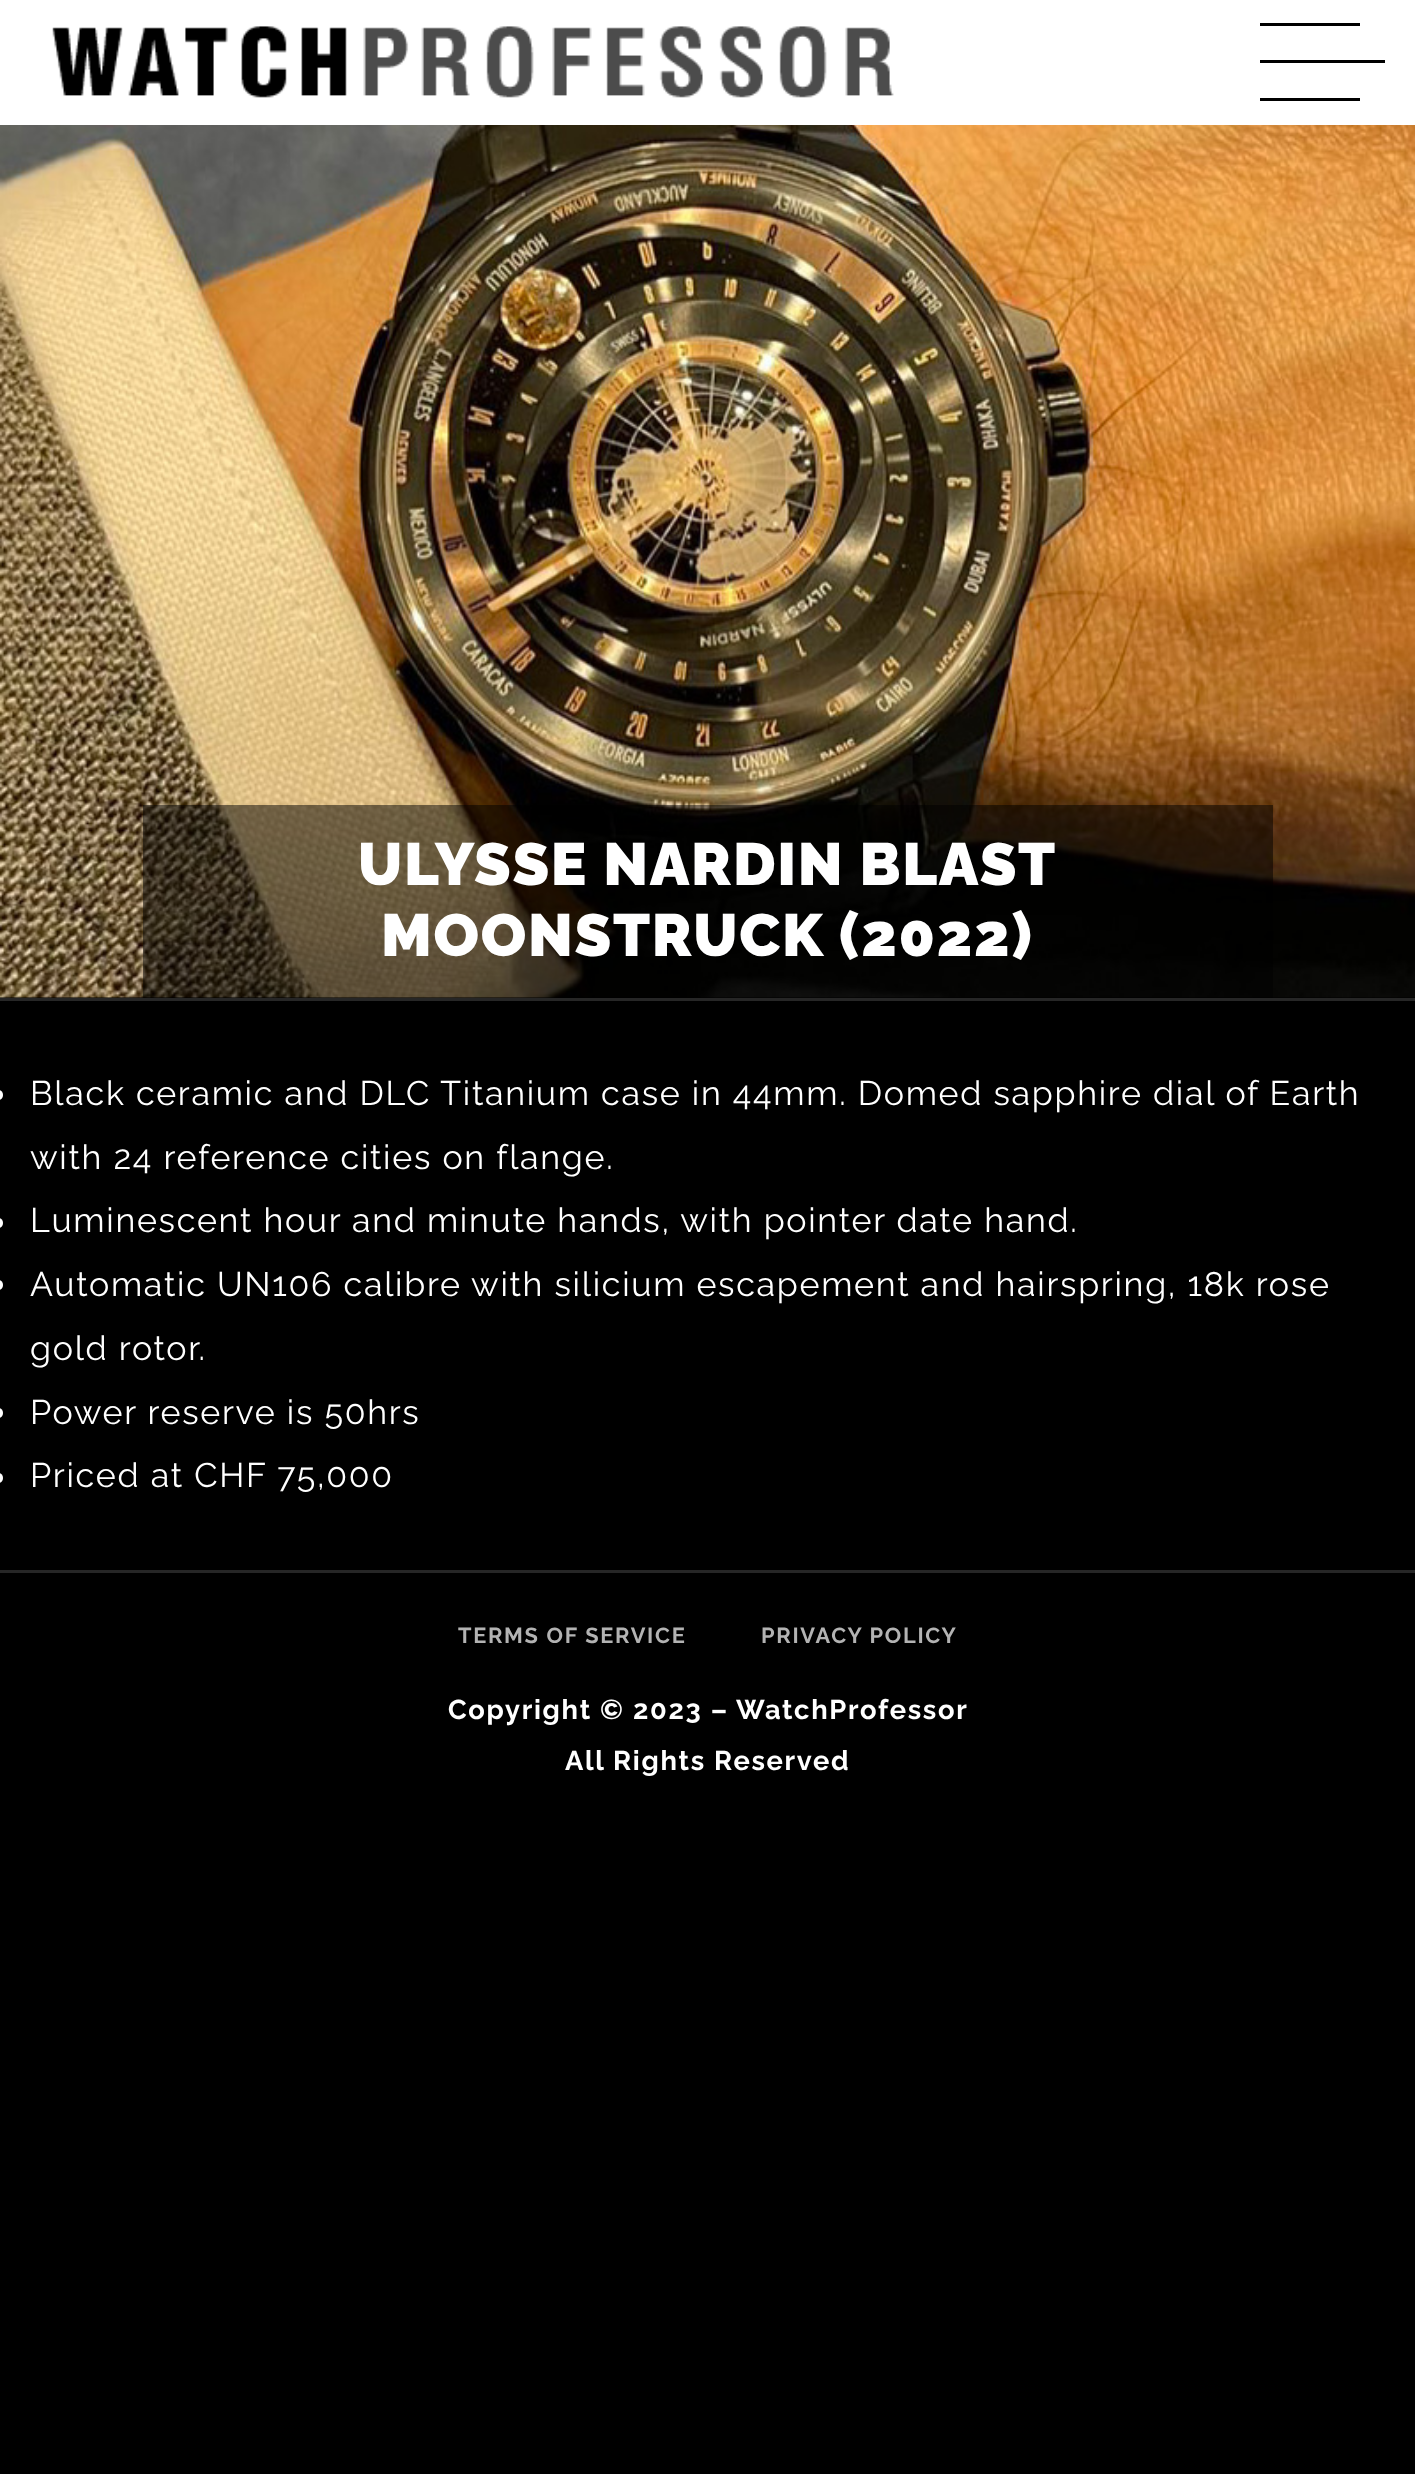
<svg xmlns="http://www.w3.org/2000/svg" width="1415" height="2474">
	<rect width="100%" height="100%" fill="#000000" />
	<rect x="0" y="0" width="1415" height="125" fill="#FFFFFF" />
	<image x="52" y="26" width="842" height="72" href="assets/img1.png" />
	<rect x="1260" y="23" width="100" height="3" fill="#000000" />
	<rect x="1260" y="60" width="125" height="3" fill="#000000" />
	<rect x="1260" y="98" width="100" height="3" fill="#000000" />
	<rect x="0" y="998" width="1415" height="3" fill="#262626" />
	<image x="0" y="125" width="1415" height="873" href="assets/img2.png" />
	<rect x="143" y="805" width="1130" height="193" fill="#000000" fill-opacity="0.5" />
	<g font-family="Raleway" font-size="59.5" font-weight="900" letter-spacing="1.7" fill="#FFFFFF">
		<text x="358" y="885">ULYSSE NARDIN BLAST</text>
		<text x="381" y="956">MOONSTRUCK (2022)</text>
	</g>
	<rect x="-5" y="1090" width="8" height="10" rx="5" fill="#FFFFFF" />
	<g font-family="Raleway" font-size="34" letter-spacing="1.7" fill="#FFFFFF">
		<text x="30" y="1105">Black ceramic and DLC Titanium case in 44mm. Domed sapphire dial of Earth</text>
		<text x="30" y="1169">with 24 reference cities on flange.</text>
	</g>
	<rect x="-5" y="1218" width="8" height="10" rx="5" fill="#FFFFFF" />
	<text x="30" y="1232" font-family="Raleway" font-size="34" letter-spacing="1.7" fill="#FFFFFF">Luminescent hour and minute hands, with pointer date hand.</text>
	<rect x="-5" y="1280" width="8" height="10" rx="5" fill="#FFFFFF" />
	<g font-family="Raleway" font-size="34" letter-spacing="1.7" fill="#FFFFFF">
		<text x="30" y="1296">Automatic UN106 calibre with silicium escapement and hairspring, 18k rose</text>
		<text x="30" y="1360">gold rotor.</text>
	</g>
	<rect x="-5" y="1408" width="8" height="10" rx="5" fill="#FFFFFF" />
	<text x="30" y="1424" font-family="Raleway" font-size="34" letter-spacing="1.7" fill="#FFFFFF">Power reserve is 50hrs</text>
	<rect x="-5" y="1473" width="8" height="10" rx="5" fill="#FFFFFF" />
	<text x="30" y="1487" font-family="Raleway" font-size="34" letter-spacing="1.7" fill="#FFFFFF">Priced at CHF 75,000</text>
	<rect x="0" y="1570" width="1415" height="3" fill="#262626" />
	<g font-family="Raleway" font-size="21.75" font-weight="700" letter-spacing="1.7" fill="#B3B3B3">
		<text x="458" y="1643">TERMS OF SERVICE</text>
		<text x="761" y="1643">PRIVACY POLICY</text>
	</g>
	<g font-family="Raleway" font-size="27.25" font-weight="700" letter-spacing="1.7" fill="#FFFFFF">
		<text x="448" y="1719">Copyright © 2023 – WatchProfessor</text>
		<text x="565" y="1770">All Rights Reserved</text>
	</g>
</svg>
